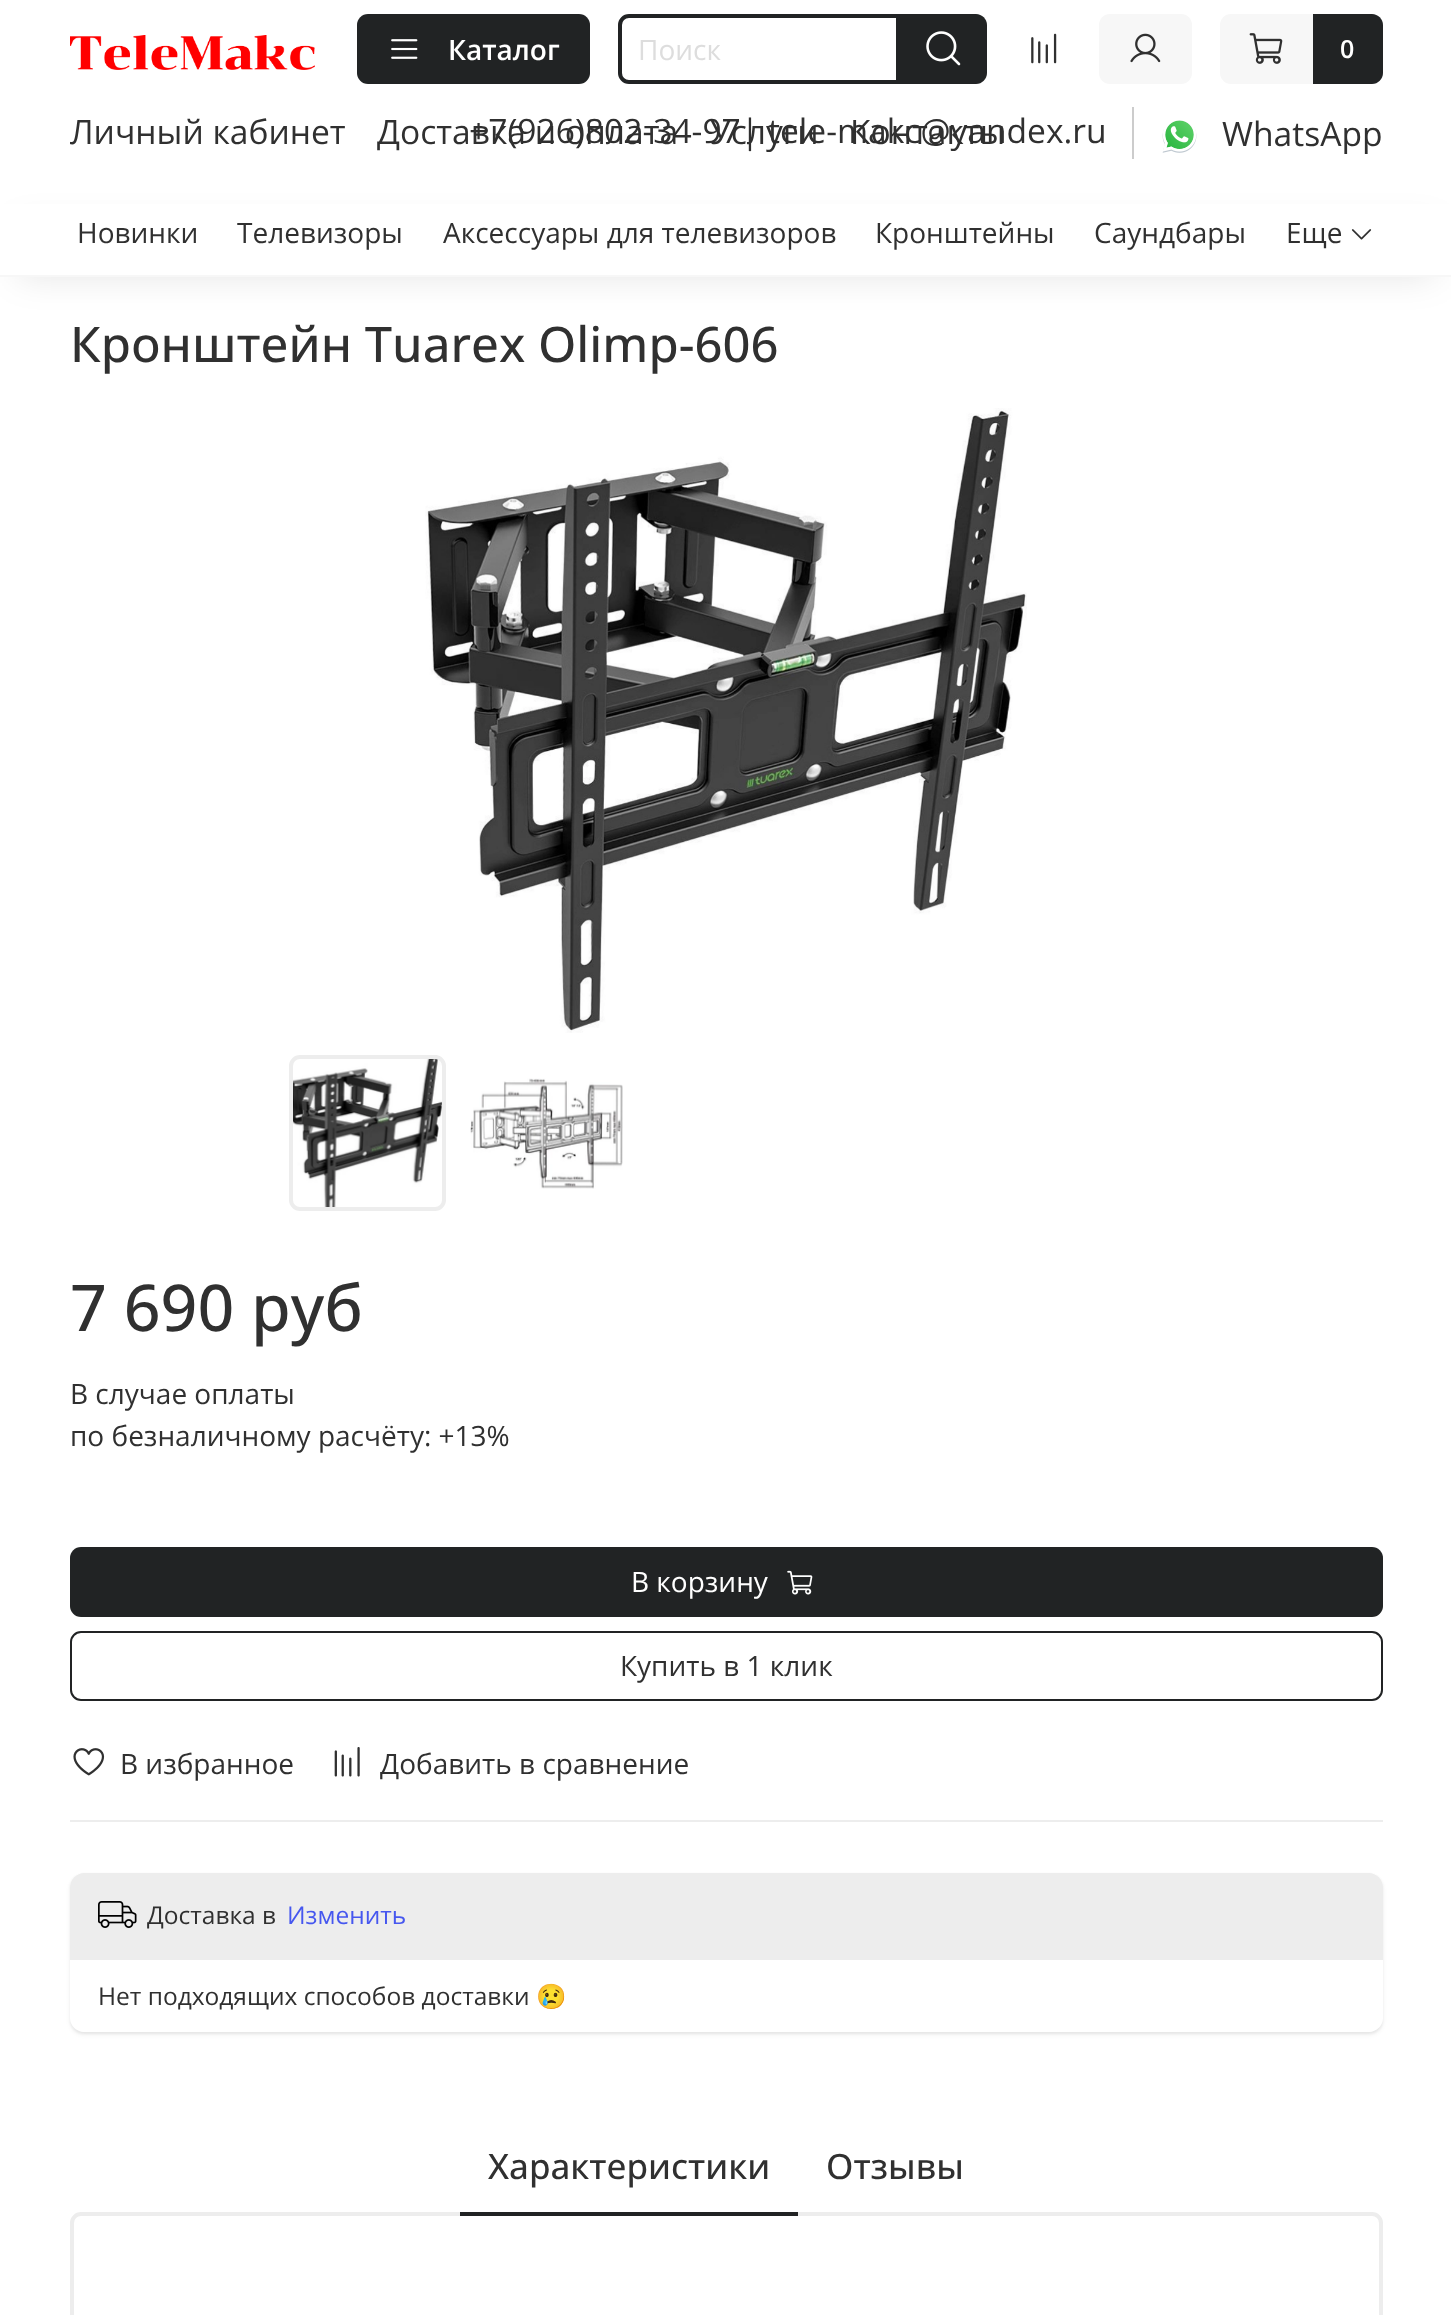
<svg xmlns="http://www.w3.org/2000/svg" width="1451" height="2315">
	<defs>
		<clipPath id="clip1"><path d="M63 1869H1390V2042H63ZM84 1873H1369C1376.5 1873 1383 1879.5 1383 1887V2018C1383 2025.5 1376.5 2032 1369 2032H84C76.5 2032 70 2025.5 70 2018V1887C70 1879.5 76.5 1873 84 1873Z" clip-rule="evenodd" /></clipPath>
		<clipPath id="clip2"><path d="M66 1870H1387V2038H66ZM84 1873H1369C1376.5 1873 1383 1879.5 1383 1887V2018C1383 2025.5 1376.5 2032 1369 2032H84C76.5 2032 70 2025.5 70 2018V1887C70 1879.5 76.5 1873 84 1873Z" clip-rule="evenodd" /></clipPath>
	</defs>
	<rect width="100%" height="100%" fill="#FFFFFF" />
	<image x="70" y="35" width="245" height="35" href="assets/img1.png" />
	<rect x="357" y="14" width="233" height="70" rx="11" fill="#212324" />
	<image x="391" y="39" width="27" height="20" href="assets/img2.png" />
	<text x="448" y="60" font-family="Open Sans" font-size="28" font-weight="600" fill="#FFFFFF">Каталог</text>
	<path d="M629 16H898V82H629C624 82 620 78 620 73V25C620 20 624 16 629 16Z" fill="none" stroke="#212324" stroke-width="4" />
	<text x="638" y="60" font-family="Open Sans" font-size="28" fill="#DDDDDD">Поиск</text>
	<path d="M900 14H976C982 14 987 19 987 25V73C987 79 982 84 976 84H900Z" fill="#212324" />
	<image x="926" y="31" width="35" height="35" href="assets/img3.png" />
	<image x="1031" y="33" width="26" height="31" href="assets/img4.png" />
	<rect x="1099" y="14" width="93" height="70" rx="11" fill="#F7F7F7" />
	<image x="1130" y="33" width="31" height="30" href="assets/img5.png" />
	<rect x="1220" y="14" width="163" height="70" rx="11" fill="#F7F7F7" />
	<image x="1249" y="33" width="34" height="31" href="assets/img6.png" />
	<path d="M1313 14H1372C1378 14 1383 19 1383 25V73C1383 79 1378 84 1372 84H1313Z" fill="#212324" />
	<text x="1340" y="58" font-family="Open Sans" font-size="25" font-weight="600" fill="#FFFFFF">0</text>
	<rect x="1132" y="107" width="2" height="52" fill="#CCCCCC" />
	<g font-family="Open Sans" font-size="33.6" fill="#303030">
		<text x="377" y="144">Доставка и оплата</text>
		<text x="710" y="144">Услуги</text>
		<text x="850" y="144">Контакты</text>
		<text x="469" y="143">+7(926)802-34-97| tele-makc@yandex.ru</text>
	</g>
	<image x="1162" y="120" width="35" height="33" href="assets/img7.png" />
	<g font-family="Open Sans" font-size="33.6" fill="#303030">
		<text x="1222" y="146">WhatsApp</text>
		<text x="70" y="144">Личный кабинет</text>
	</g>
	<rect x="18" y="226" width="1417" height="51" fill="#000000" fill-opacity="0.1" filter="blur(17.5px)" />
	<rect x="0" y="204" width="1451" height="71" fill="#FFFFFF" />
	<rect x="0" y="275" width="1451" height="2" fill="#F7F7F7" />
	<g font-family="Open Sans" font-size="28" fill="#303030">
		<text x="77" y="243">Новинки</text>
		<text x="237" y="243">Телевизоры</text>
		<text x="443" y="243">Аксессуары для телевизоров</text>
		<text x="875" y="243">Кронштейны</text>
		<text x="1094" y="243">Саундбары</text>
		<text x="1286" y="243">Еще</text>
	</g>
	<image x="1351" y="229" width="21" height="11" href="assets/img8.png" />
	<text x="70" y="362" font-family="Open Sans" font-size="49" font-weight="500" fill="#303030">Кронштейн Tuarex Olimp-606</text>
	<image x="425" y="408" width="602" height="625" href="assets/img9.png" />
	<image x="290" y="1055" width="153" height="156" href="assets/img10.png" />
	<rect x="291" y="1057" width="153" height="152" rx="9" fill="none" stroke="#EDEDED" stroke-width="4" />
	<image x="470" y="1078" width="153" height="111" href="assets/img11.png" />
	<text x="70" y="1331" font-family="Open Sans" font-size="64.5" font-weight="500" fill="#303030">7 690 руб</text>
	<g font-family="Open Sans" font-size="28" fill="#303030">
		<text x="70" y="1404">В случае оплаты</text>
		<text x="70" y="1446">по безналичному расчёту: +13%</text>
	</g>
	<rect x="70" y="1547" width="1313" height="70" rx="11" fill="#212324" />
	<text x="631" y="1592" font-family="Open Sans" font-size="28" fill="#FFFFFF">В корзину</text>
	<image x="787" y="1570" width="26" height="25" href="assets/img12.png" />
	<rect x="71" y="1632" width="1311" height="68" rx="10" fill="none" stroke="#212324" stroke-width="2" />
	<text x="620" y="1676" font-family="Open Sans" font-size="28" fill="#303030">Купить в 1 клик</text>
	<image x="73" y="1748" width="32" height="28" href="assets/img13.png" />
	<text x="120" y="1774" font-family="Open Sans" font-size="28" fill="#303030">В избранное</text>
	<image x="334" y="1747" width="26" height="30" href="assets/img14.png" />
	<text x="380" y="1774" font-family="Open Sans" font-size="28" fill="#303030">Добавить в сравнение</text>
	<rect x="70" y="1820" width="1313" height="2" fill="#EDEDED" />
	<g clip-path="url(#clip1)">
		<rect x="70" y="1876" width="1313" height="159" rx="14" fill="#000000" fill-opacity="0.05" filter="blur(2px)" />
	</g>
	<g clip-path="url(#clip2)">
		<rect x="70" y="1874" width="1313" height="160" rx="14" fill="#000000" fill-opacity="0.05" filter="blur(1px)" />
	</g>
	<path d="M84 1873H1369C1376.5 1873 1383 1879.5 1383 1887V1960H70V1887C70 1879.5 76.5 1873 84 1873Z" fill="#EDEDED" />
	<image x="98" y="1901" width="39" height="27" href="assets/img15.png" />
	<text x="147" y="1924" font-family="Open Sans" font-size="24.5" fill="#303030">Доставка в</text>
	<text x="287" y="1924" font-family="Open Sans" font-size="24.5" fill="#4657EF">Изменить</text>
	<text x="98" y="2005" font-family="Open Sans" font-size="24.5" fill="#303030">Нет подходящих способов доставки</text>
	<text x="536" y="2005" font-family="Noto Color Emoji" font-size="24.5" fill="#303030">😢</text>
	<rect x="72" y="2214" width="1309" height="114" rx="9" fill="none" stroke="#EDEDED" stroke-width="4" />
	<rect x="460" y="2212" width="338" height="4" fill="#212324" />
	<g font-family="Open Sans" font-size="35" font-weight="500" fill="#303030">
		<text x="488" y="2179">Характеристики</text>
		<text x="826" y="2179">Отзывы</text>
	</g>
</svg>
